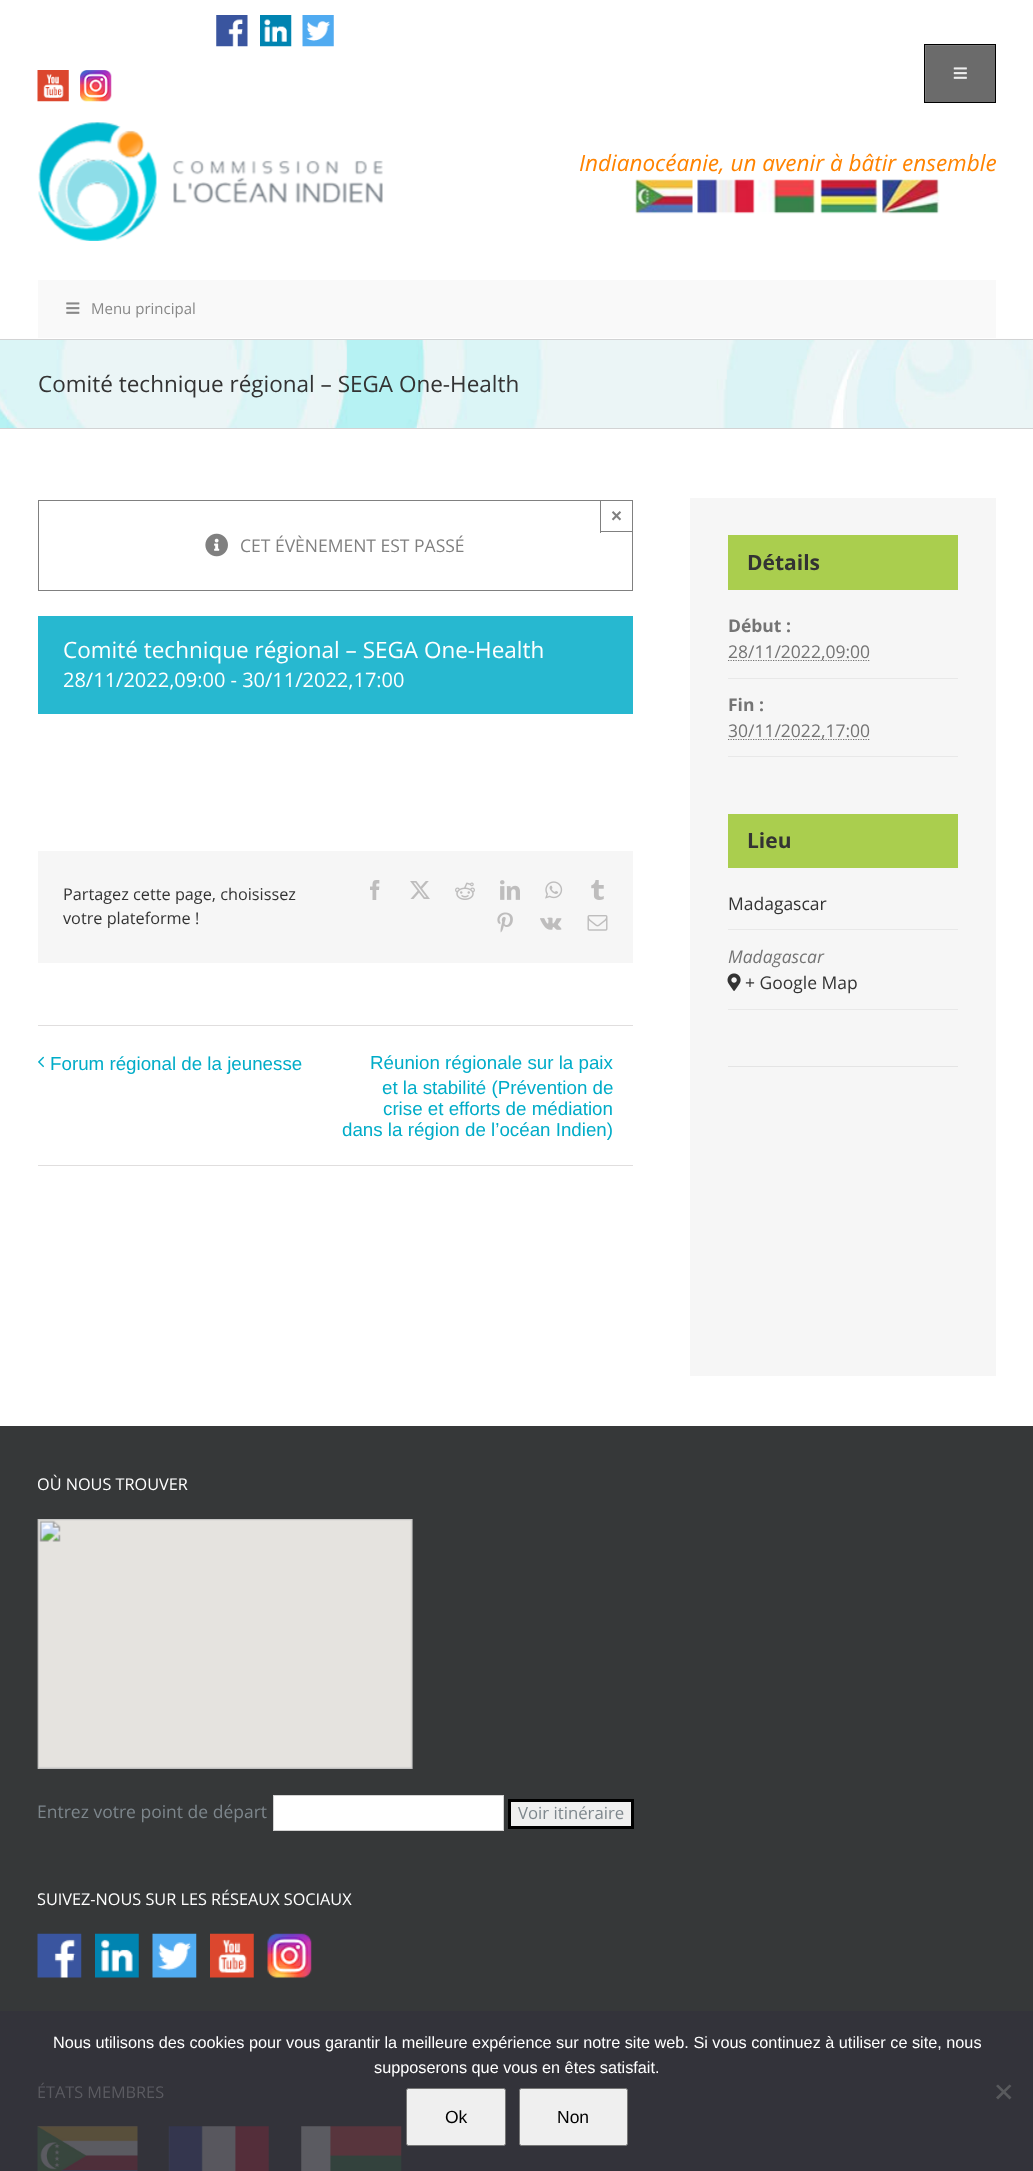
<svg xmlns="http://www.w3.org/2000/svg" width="1033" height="2171">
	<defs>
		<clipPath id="clip1"><rect x="925" y="45" width="70" height="56" /></clipPath>
	</defs>
	<rect width="100%" height="100%" fill="#FFFFFF" />
	<image x="216" y="15" width="32" height="32" href="assets/img1.png" />
	<image x="260" y="15" width="32" height="32" href="assets/img2.png" />
	<image x="302" y="15" width="32" height="32" href="assets/img3.png" />
	<image x="37" y="70" width="32" height="32" href="assets/img4.png" />
	<image x="80" y="70" width="32" height="32" href="assets/img5.png" />
	<rect x="925" y="46" width="70" height="56" fill="#6B6B6B" />
	<g clip-path="url(#clip1)">
		<path d="M801-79H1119V225H801ZM926 46H996V102H926Z" fill="#7A7A7A" fill-rule="evenodd" />
	</g>
	<rect x="924.5" y="44.5" width="71" height="58" fill="none" stroke="#000000" />
	<image x="953" y="67" width="14" height="12" href="assets/img6.png" />
	<image x="38" y="122" width="345" height="119" href="assets/img7.png" />
	<text x="579" y="171" font-family="Open Sans" font-size="22.5" font-style="italic" fill="#FF8300">Indianocéanie, un avenir à bâtir ensemble</text>
	<image x="635" y="179" width="58" height="35" href="assets/img8.png" />
	<image x="697" y="179" width="58" height="35" href="assets/img9.png" />
	<image x="758" y="179" width="58" height="35" href="assets/img10.png" />
	<image x="820" y="179" width="58" height="35" href="assets/img11.png" />
	<image x="882" y="179" width="58" height="35" href="assets/img12.png" />
	<rect x="38" y="280" width="958" height="58" fill="#F9F9F9" />
	<image x="66" y="302" width="14" height="12" href="assets/img13.png" />
	<text x="91" y="314" font-family="Open Sans" font-size="15" fill="#888888">Menu principal</text>
	<image x="0" y="340" width="1033" height="88" href="assets/img14.png" />
	<rect x="0" y="339" width="1033" height="1" fill="#D2D3D4" />
	<rect x="0" y="428" width="1033" height="1" fill="#D2D3D4" />
	<text x="38" y="392" font-family="Open Sans" font-size="22.5" fill="#333333">Comité technique régional – SEGA One-Health</text>
	<rect x="38.5" y="500.5" width="594" height="90" fill="none" stroke="#808080" />
	<rect x="600" y="531" width="33" height="1" fill="#808080" />
	<rect x="600" y="500" width="1" height="33" fill="#808080" />
	<text x="611" y="522" font-family="Liberation Sans" font-size="18.75" font-weight="700" fill="#808080">×</text>
	<image x="205" y="533" width="23" height="24" href="assets/img15.png" />
	<text x="240" y="552" font-family="Open Sans" font-size="17.5" fill="#808080">CET ÉVÈNEMENT EST PASSÉ</text>
	<rect x="38" y="616" width="595" height="98" fill="#27B8D0" />
	<text x="63" y="658" font-family="Open Sans" font-size="22.5" fill="#FFFFFF">Comité technique régional – SEGA One-Health</text>
	<text x="63" y="687" font-family="Open Sans" font-size="20" fill="#FFFFFF">28/11/2022,09:00 - 30/11/2022,17:00</text>
	<rect x="38" y="851" width="595" height="112" fill="#F6F6F6" />
	<g font-family="Open Sans" font-size="16.25" fill="#333333">
		<text x="63" y="900">Partagez cette page, choisissez</text>
		<text x="63" y="924">votre plateforme !</text>
	</g>
	<image x="370" y="880" width="10" height="20" href="assets/img16.png" />
	<image x="410" y="881" width="20" height="18" href="assets/img17.png" />
	<image x="455" y="882" width="20" height="18" href="assets/img18.png" />
	<image x="500" y="880" width="20" height="20" href="assets/img19.png" />
	<image x="545" y="881" width="18" height="18" href="assets/img20.png" />
	<image x="591" y="880" width="13" height="20" href="assets/img21.png" />
	<image x="497" y="912" width="16" height="21" href="assets/img22.png" />
	<image x="540" y="917" width="22" height="13" href="assets/img23.png" />
	<image x="587" y="915" width="21" height="16" href="assets/img24.png" />
	<rect x="38" y="1025" width="595" height="1" fill="#E0DEDE" />
	<rect x="38" y="1165" width="595" height="1" fill="#E0DEDE" />
	<image x="38" y="1056" width="6" height="12" href="assets/img25.png" />
	<g font-family="Liberation Sans" font-size="18.75" fill="#00ACC8">
		<text x="50" y="1070">Forum régional de la jeunesse</text>
		<text x="370" y="1069">Réunion régionale sur la paix</text>
		<text x="382" y="1094">et la stabilité (Prévention de</text>
		<text x="383" y="1115">crise et efforts de médiation</text>
		<text x="342" y="1136">dans la région de l’océan Indien)</text>
	</g>
	<rect x="690" y="498" width="306" height="878" fill="#F6F6F6" />
	<rect x="728" y="535" width="230" height="55" fill="#AACE4E" />
	<text x="747" y="570" font-family="Open Sans" font-size="21" font-weight="700" fill="#333333">Détails</text>
	<text x="728" y="632" font-family="Open Sans" font-size="17.5" font-weight="700" fill="#747474">Début :</text>
	<rect x="728" y="678" width="230" height="1" fill="#E8E8E8" />
	<path d="M728 660.5H870" fill="none" stroke="#747474" stroke-width="1.2" stroke-dasharray="1.25 1.25" />
	<text x="728" y="658" font-family="Open Sans" font-size="17.5" fill="#747474">28/11/2022,09:00</text>
	<text x="728" y="711" font-family="Open Sans" font-size="17.5" font-weight="700" fill="#747474">Fin :</text>
	<rect x="728" y="756" width="230" height="1" fill="#E8E8E8" />
	<path d="M728 739.5H870" fill="none" stroke="#747474" stroke-width="1.2" stroke-dasharray="1.25 1.25" />
	<text x="728" y="737" font-family="Open Sans" font-size="17.5" fill="#747474">30/11/2022,17:00</text>
	<rect x="728" y="814" width="230" height="54" fill="#AACE4E" />
	<text x="747" y="848" font-family="Open Sans" font-size="21" font-weight="700" fill="#333333">Lieu</text>
	<rect x="728" y="929" width="230" height="1" fill="#E8E8E8" />
	<text x="728" y="910" font-family="Open Sans" font-size="17.5" fill="#333333">Madagascar</text>
	<rect x="728" y="1009" width="230" height="1" fill="#E8E8E8" />
	<text x="728" y="963" font-family="Open Sans" font-size="17.5" font-style="italic" fill="#747474">Madagascar</text>
	<image x="727" y="973" width="14" height="18" href="assets/img26.png" />
	<text x="745" y="989" font-family="Open Sans" font-size="17.5" fill="#333333">+ Google Map</text>
	<rect x="728" y="1066" width="230" height="1" fill="#E4E4E4" />
	<rect x="0" y="1426" width="1033" height="585" fill="#363839" />
	<rect x="0" y="2011" width="1033" height="160" fill="#33333A" />
	<text x="37" y="1490" font-family="Open Sans" font-size="16.25" fill="#FFFFFF">OÙ NOUS TROUVER</text>
	<image x="37" y="1519" width="376" height="250" href="assets/img27.png" />
	<text x="37" y="1818" font-family="Open Sans" font-size="17.5" fill="#7D868C">Entrez votre point de départ</text>
	<rect x="273.5" y="1795.5" width="230" height="35" fill="#FFFFFF" stroke="#D2D2D2" />
	<rect x="509.5" y="1800.5" width="123" height="27" fill="#EFEFEF" stroke="#000000" stroke-width="3" />
	<text x="518" y="1819" font-family="Open Sans" font-size="16.75" fill="#7D868C">Voir itinéraire</text>
	<text x="37" y="1905" font-family="Open Sans" font-size="16.25" fill="#FFFFFF">SUIVEZ-NOUS SUR LES RÉSEAUX SOCIAUX</text>
	<image x="37" y="1933" width="45" height="45" href="assets/img28.png" />
	<image x="95" y="1933" width="44" height="45" href="assets/img29.png" />
	<image x="152" y="1933" width="45" height="45" href="assets/img30.png" />
	<image x="210" y="1933" width="44" height="45" href="assets/img31.png" />
	<image x="267" y="1933" width="45" height="45" href="assets/img32.png" />
	<text x="37" y="2098" font-family="Open Sans" font-size="16.25" fill="#5B5B61">ÉTATS MEMBRES</text>
	<image x="37" y="2126" width="101" height="45" href="assets/img33.png" />
	<image x="168" y="2126" width="101" height="45" href="assets/img34.png" />
	<image x="301" y="2126" width="101" height="45" href="assets/img35.png" />
	<g font-family="Liberation Sans" font-size="16.25" fill="#FFFFFF">
		<text x="53" y="2048">Nous utilisons des cookies pour vous garantir la meilleure expérience sur notre site web. Si vous continuez à utiliser ce site, nous</text>
		<text x="374" y="2073">supposerons que vous en êtes satisfait.</text>
	</g>
	<path d="M1009.5 2084.5L1011.5 2086L998 2099.5L996 2097.5Z" fill="#595A5D" />
	<path d="M996 2086L998 2084.5L1011.5 2097.5L1009.5 2099.5Z" fill="#595A5D" />
	<rect x="406.5" y="2088.5" width="99" height="57" rx="2" fill="#EFEFEF" stroke="#767676" />
	<text x="445" y="2123" font-family="Liberation Sans" font-size="17.5" fill="#000000">Ok</text>
	<rect x="519.5" y="2088.5" width="108" height="57" rx="2" fill="#EFEFEF" stroke="#767676" />
	<text x="557" y="2123" font-family="Liberation Sans" font-size="17.5" fill="#000000">Non</text>
</svg>
